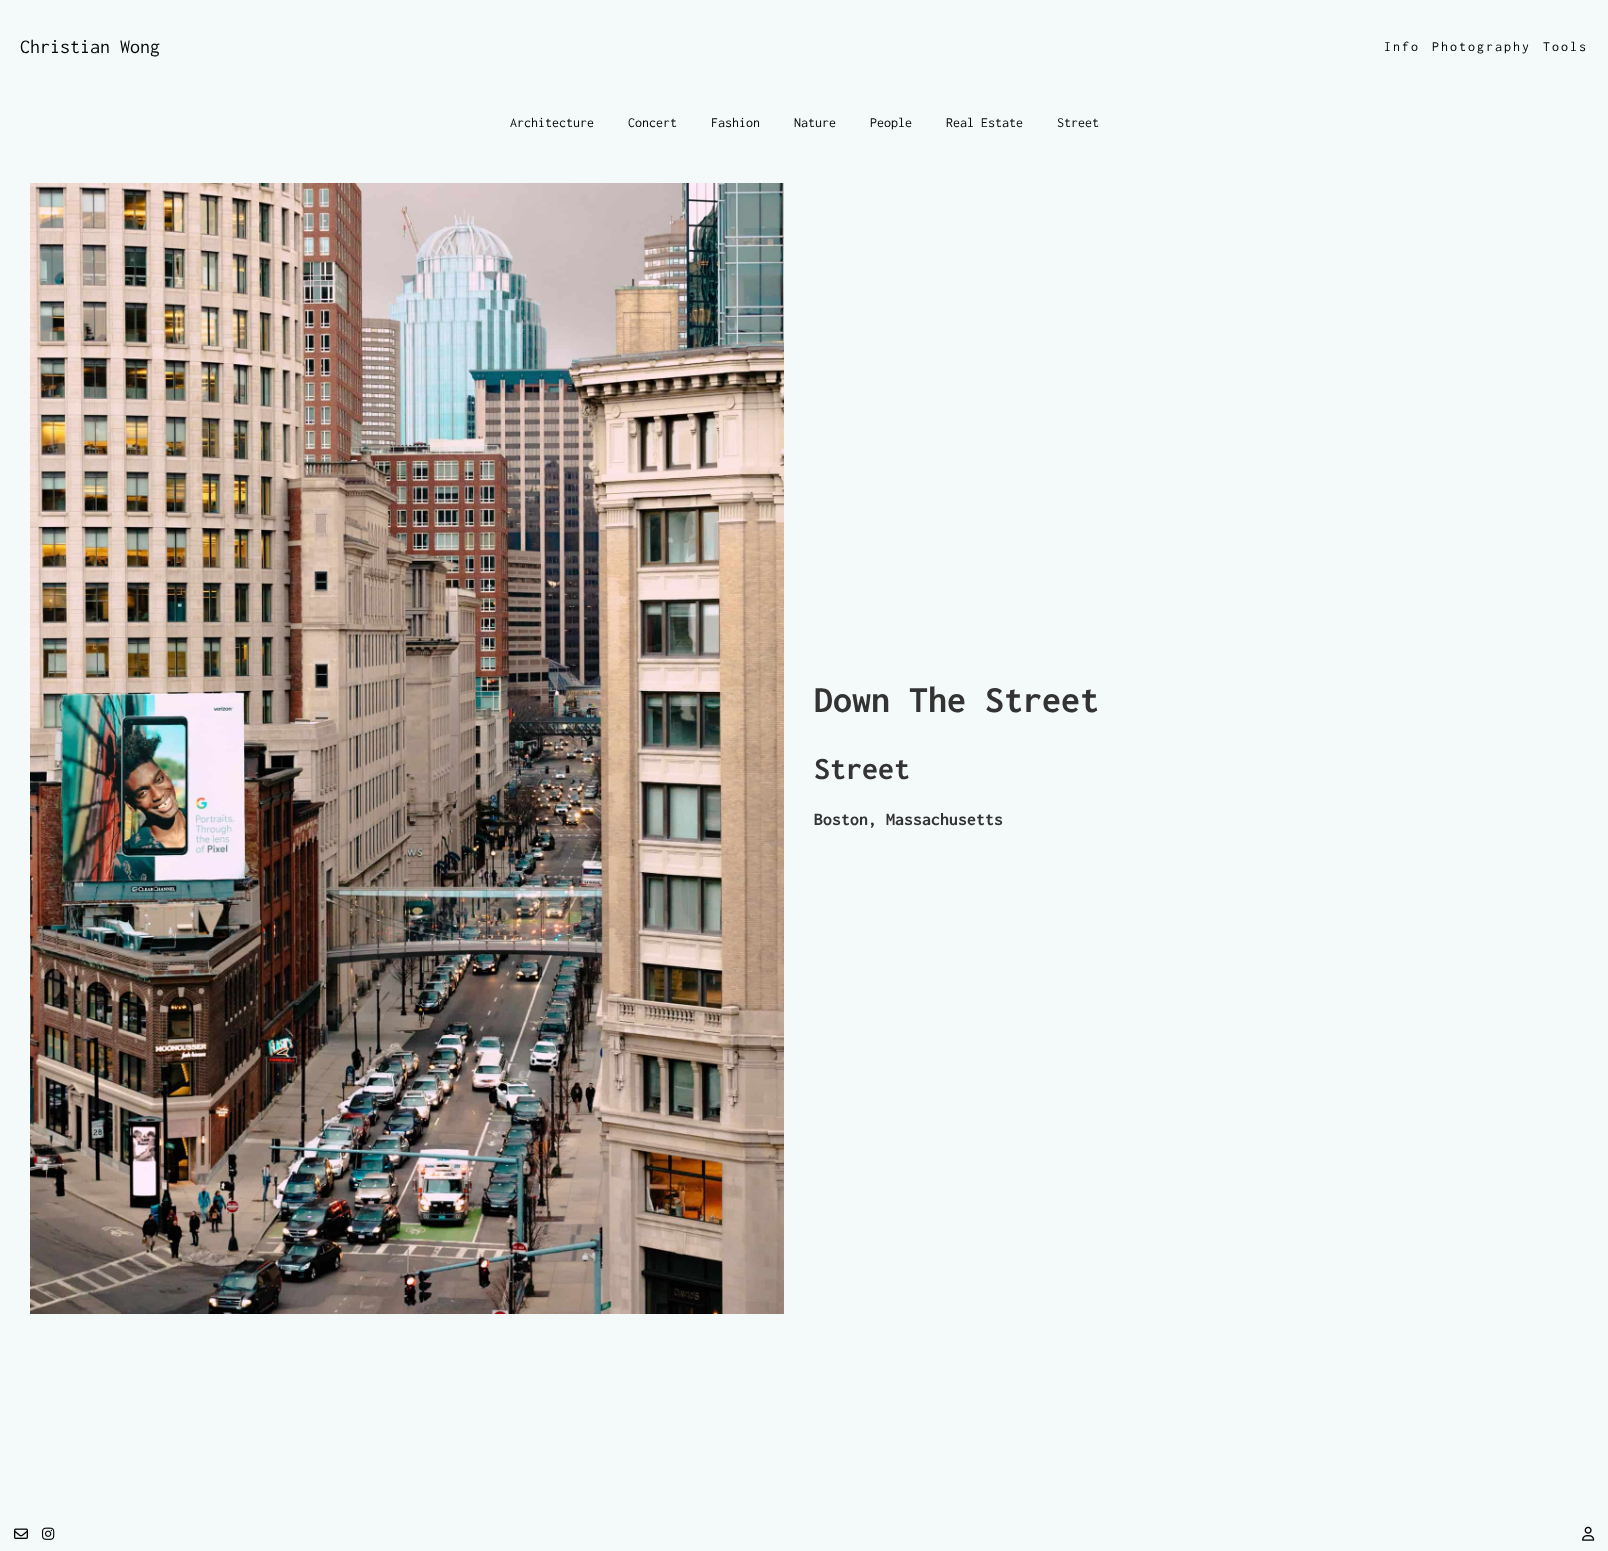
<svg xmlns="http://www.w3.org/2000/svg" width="1608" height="1551">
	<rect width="100%" height="100%" fill="#F4F9F9" />
	<text x="20" y="53" font-family="Inconsolata" font-size="20" fill="#000000">Christian Wong</text>
	<g font-family="Inconsolata" font-size="14" letter-spacing="2" fill="#000000">
		<text x="1384" y="51">Info</text>
		<text x="1432" y="51">Photography</text>
		<text x="1543" y="51">Tools</text>
	</g>
	<g font-family="Inconsolata" font-size="14" fill="#000000">
		<text x="510" y="127">Architecture</text>
		<text x="628" y="127">Concert</text>
		<text x="711" y="127">Fashion</text>
		<text x="794" y="127">Nature</text>
		<text x="870" y="127">People</text>
		<text x="946" y="127">Real Estate</text>
		<text x="1057" y="127">Street</text>
	</g>
	<image x="30" y="183" width="754" height="1131" href="assets/img1.png" />
	<text x="814" y="712" font-family="Inconsolata" font-size="38" font-weight="700" fill="#333333">Down The Street</text>
	<text x="814" y="779" font-family="Inconsolata" font-size="32" font-weight="700" fill="#333333">Street</text>
	<text x="814" y="825" font-family="Inconsolata" font-size="18" font-weight="700" fill="#333333">Boston, Massachusetts</text>
	<image x="14" y="1528" width="14" height="11" href="assets/img2.png" />
	<image x="42" y="1527" width="13" height="13" href="assets/img3.png" />
	<image x="1582" y="1526" width="13" height="15" href="assets/img4.png" />
</svg>
